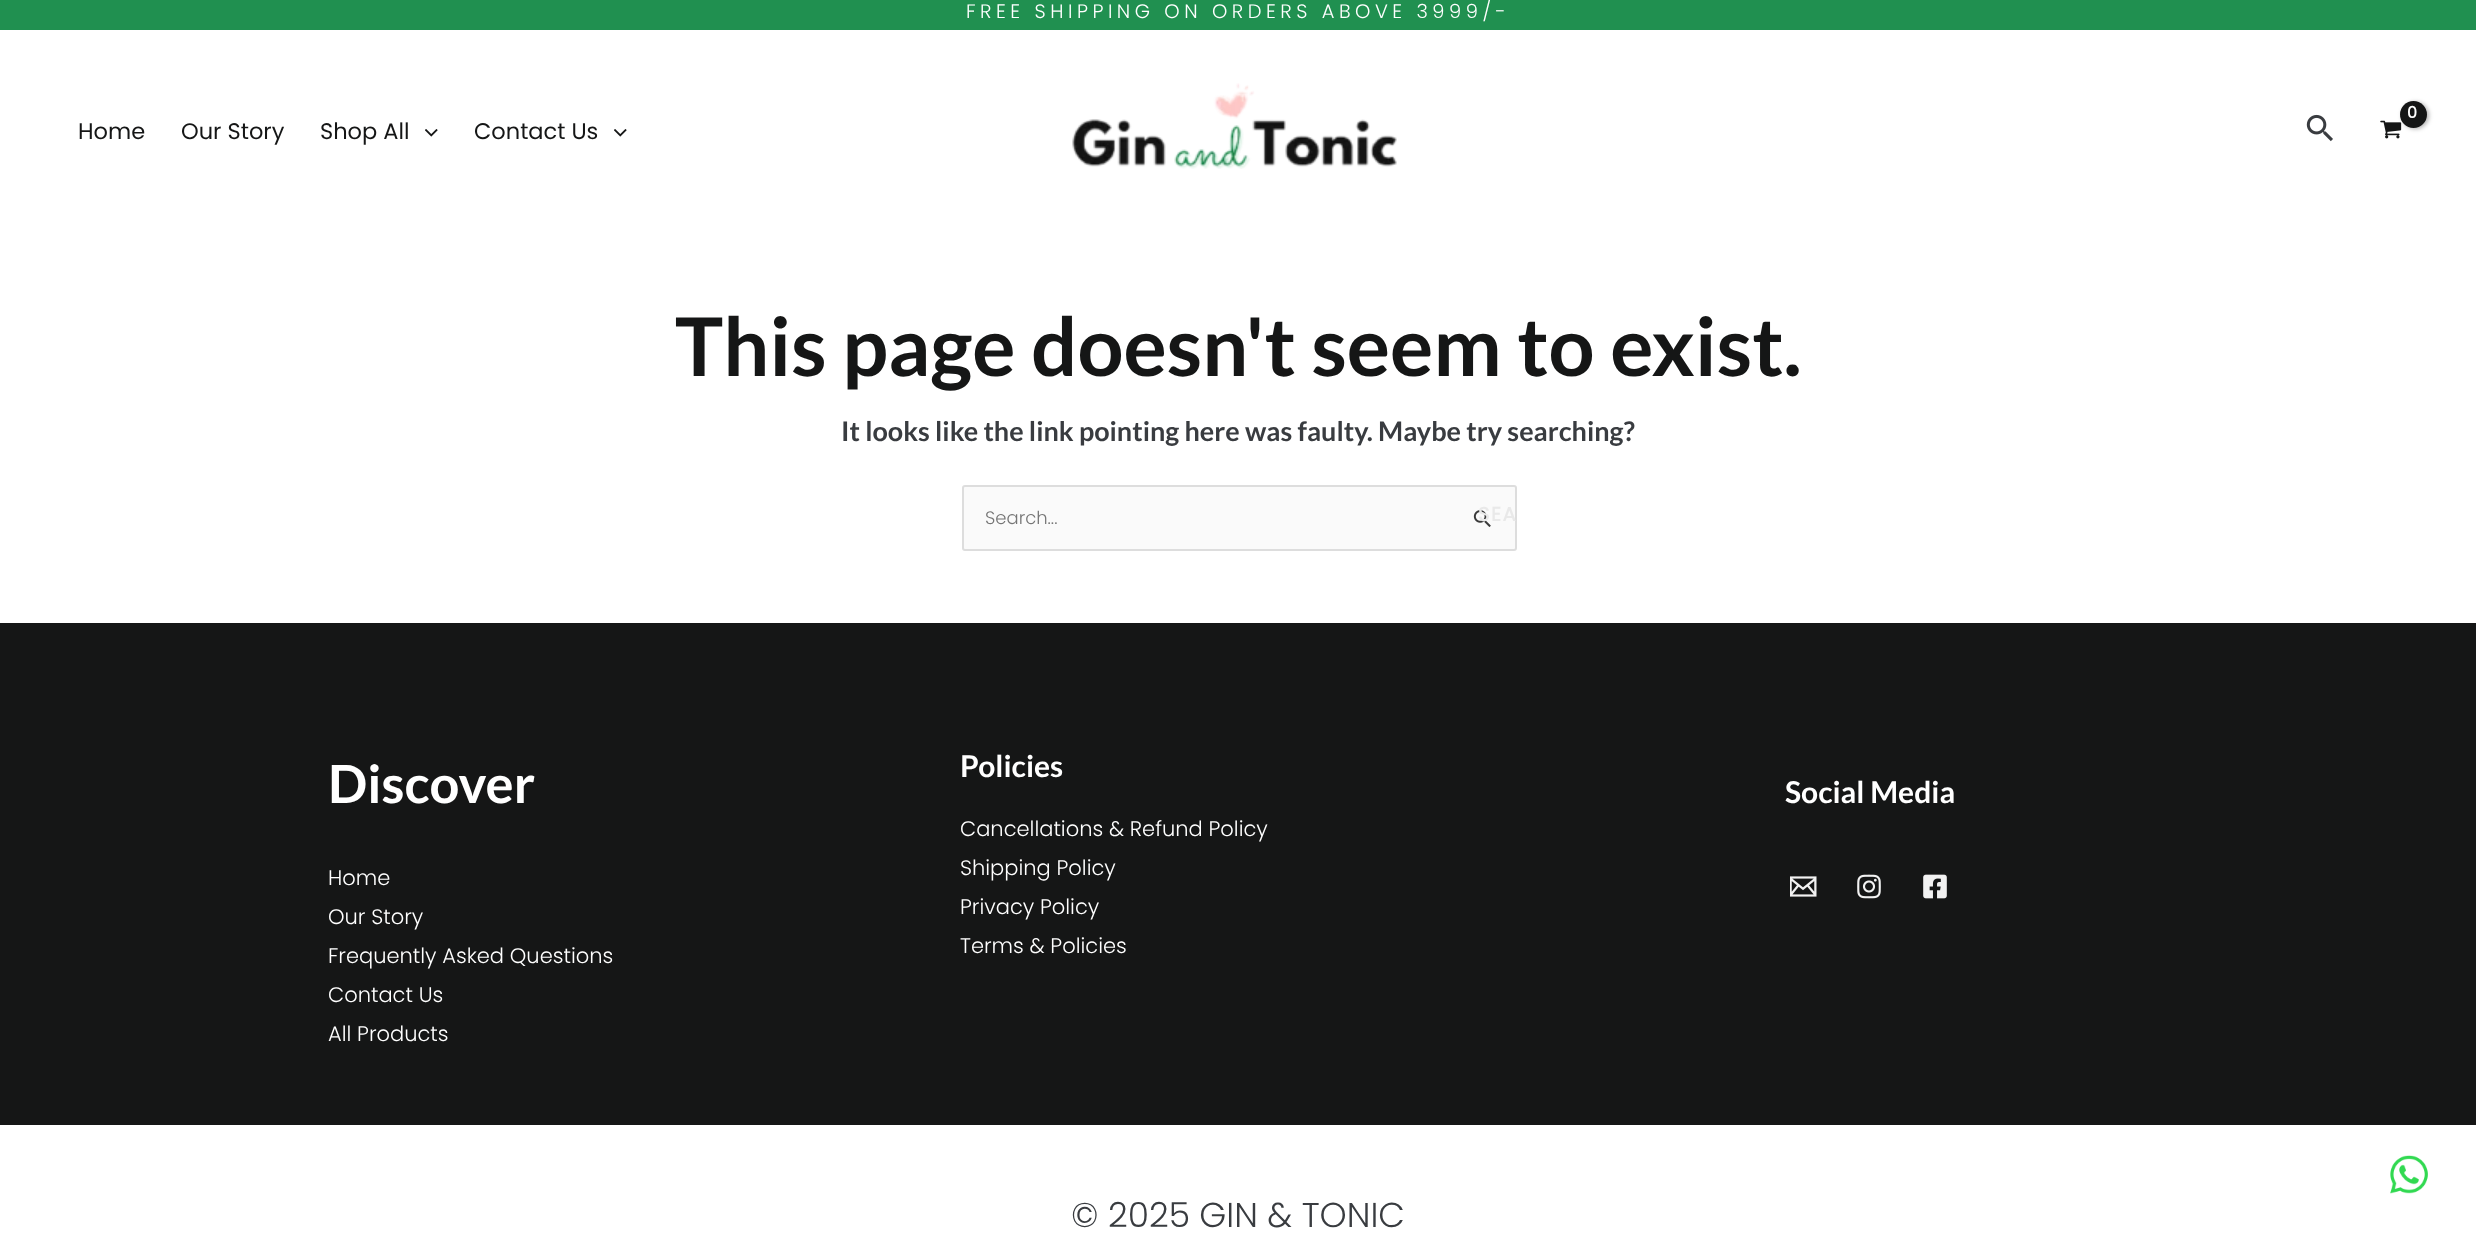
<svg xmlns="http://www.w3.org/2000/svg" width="2476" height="1242">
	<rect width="100%" height="100%" fill="#FFFFFF" />
	<rect x="0" y="0" width="2476" height="30" fill="#209050" />
	<text x="966" y="18" font-family="Poppins" font-size="19.5" font-weight="300" letter-spacing="4.5" fill="#FFFFFF">FREE SHIPPING ON ORDERS ABOVE 3999/-</text>
	<image x="1072" y="83" width="325" height="86" href="assets/img1.png" />
	<image x="2380" y="120" width="22" height="19" href="assets/img2.png" />
	<rect x="2402" y="102" width="27" height="27" rx="13.5" fill="#000000" fill-opacity="0.3" filter="blur(2px)" />
	<circle cx="2413.5" cy="114.5" r="13.5" fill="#151616" />
	<text x="2407" y="118" font-family="Poppins" font-size="16" font-weight="700" letter-spacing="-1" fill="#FFFFFF">0</text>
	<image x="2306" y="114" width="27" height="28" href="assets/img3.png" />
	<g font-family="Poppins" font-size="22.5" fill="#151616">
		<text x="78" y="139">Home</text>
		<text x="181" y="139">Our Story</text>
		<text x="320" y="139">Shop All</text>
	</g>
	<image x="425" y="129" width="13" height="8" href="assets/img4.png" />
	<text x="474" y="139" font-family="Poppins" font-size="22.5" fill="#151616">Contact Us</text>
	<image x="614" y="129" width="13" height="8" href="assets/img4.png" />
	<text x="675" y="376" font-family="Lato" font-size="81" font-weight="700" fill="#151616">This page doesn't seem to exist.</text>
	<text x="841" y="441" font-family="Lato" font-size="27" font-weight="700" fill="#393C40">It looks like the link pointing here was faulty. Maybe try searching?</text>
	<rect x="963" y="486" width="553" height="64" rx="2" fill="#FAFAFA" stroke="#DDDDDD" stroke-width="2" />
	<text x="985" y="524" font-family="Poppins" font-size="18" font-weight="300" fill="#757575">Search...</text>
	<image x="1473" y="510" width="18" height="17" href="assets/img5.png" />
	<text x="1478" y="521" font-family="Poppins" font-size="19.5" font-weight="700" letter-spacing="1.5" fill="#E9E9E9">SEA</text>
	<rect x="0" y="623" width="2476" height="502" fill="#151616" />
	<text x="328" y="803" font-family="Lato" font-size="52.5" font-weight="700" fill="#FFFFFF">Discover</text>
	<g font-family="Poppins" font-size="21" font-weight="300" fill="#FFFFFF">
		<text x="328" y="885">Home</text>
		<text x="328" y="924">Our Story</text>
		<text x="328" y="963">Frequently Asked Questions</text>
		<text x="328" y="1002">Contact Us</text>
		<text x="328" y="1041">All Products</text>
	</g>
	<text x="960" y="777" font-family="Lato" font-size="30" font-weight="700" fill="#FFFFFF">Policies</text>
	<g font-family="Poppins" font-size="21" font-weight="300" fill="#FFFFFF">
		<text x="960" y="836">Cancellations &amp; Refund Policy</text>
		<text x="960" y="875">Shipping Policy</text>
		<text x="960" y="914">Privacy Policy</text>
		<text x="960" y="953">Terms &amp; Policies</text>
	</g>
	<text x="1785" y="803" font-family="Lato" font-size="30" font-weight="700" fill="#FFFFFF">Social Media</text>
	<image x="1790" y="876" width="27" height="21" href="assets/img6.png" />
	<image x="1857" y="874" width="24" height="25" href="assets/img7.png" />
	<image x="1923" y="874" width="24" height="25" href="assets/img8.png" />
	<text x="1071" y="1227" font-family="Poppins" font-size="34.5" font-weight="300" fill="#393C40">© 2025 GIN &amp; TONIC</text>
	<image x="2390" y="1155" width="38" height="39" href="assets/img9.png" />
</svg>
